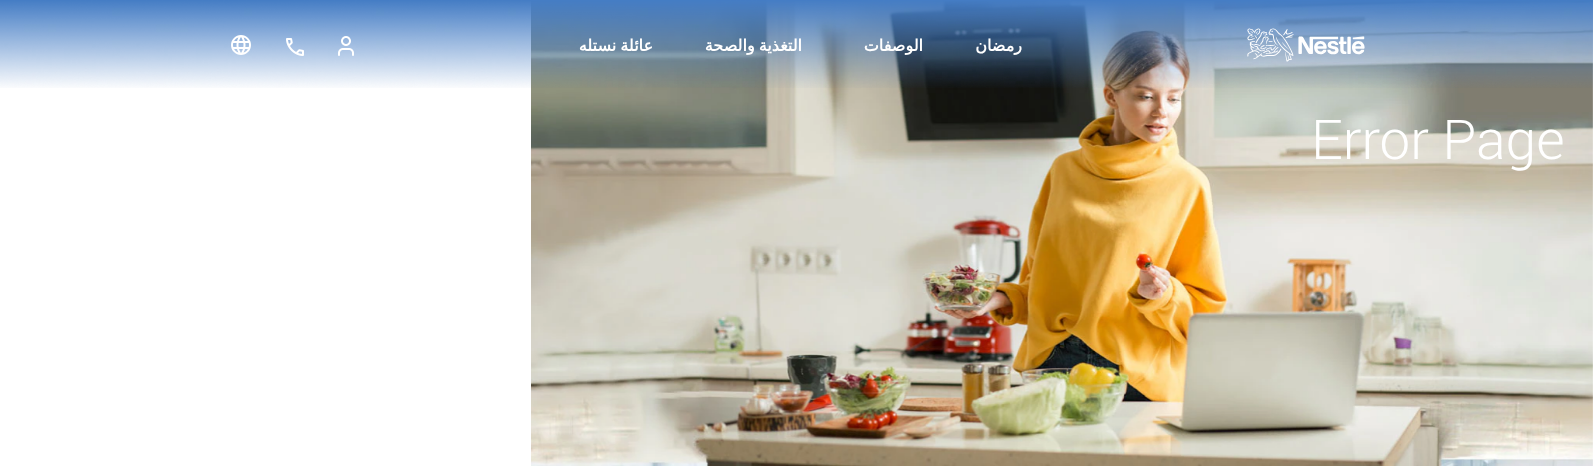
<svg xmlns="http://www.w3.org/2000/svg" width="1593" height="474">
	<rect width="100%" height="100%" fill="#FFFFFF" />
	<image x="531" y="0" width="1062" height="466" href="assets/img6.png" />
	<image x="0" y="0" width="1593" height="88" href="assets/img1.png" />
	<image x="1247" y="28" width="118" height="34" href="assets/img2.png" />
	<g font-family="DejaVu Sans" font-size="16" font-weight="700" direction="rtl" fill="#FFFFFF">
		<text x="1022" y="51">رمضان</text>
		<text x="923" y="51">الوصفات</text>
		<text x="802" y="51" word-spacing="-1">التغذية والصحة</text>
		<text x="653" y="51" word-spacing="-1">عائلة نستله</text>
	</g>
	<image x="338" y="36" width="16" height="20" href="assets/img3.png" />
	<image x="286" y="38" width="18" height="18" href="assets/img4.png" />
	<image x="231" y="35" width="20" height="20" href="assets/img5.png" />
	<text x="1311" y="159" font-family="Roboto" font-size="55" font-weight="300" fill="#FFFFFF">Error Page</text>
</svg>
